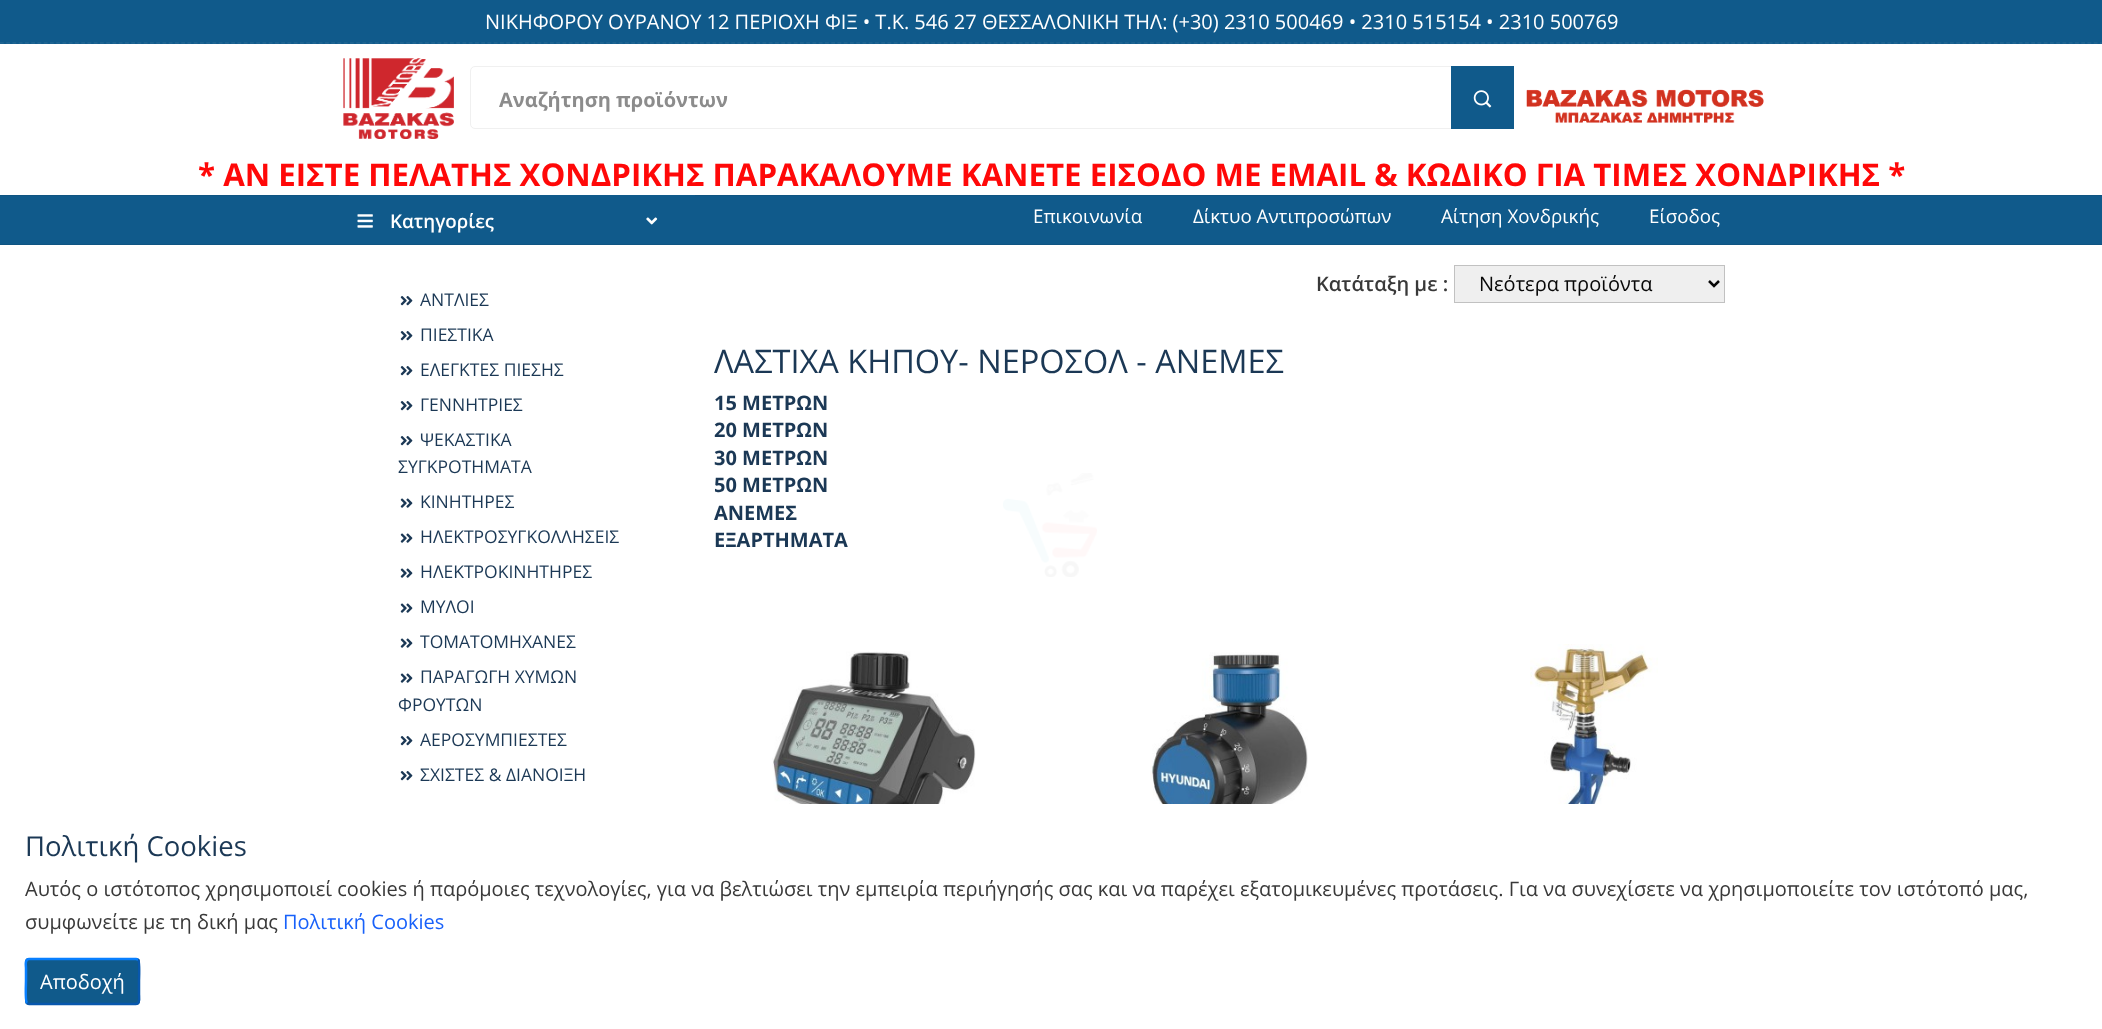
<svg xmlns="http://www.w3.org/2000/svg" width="2102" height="1029">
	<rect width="100%" height="100%" fill="#FFFFFF" />
	<rect x="0" y="0" width="2102" height="44" fill="#105A8B" />
	<path d="M0 43H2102.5" fill="none" stroke="#296B96" stroke-width="1.2" stroke-dasharray="3.75 2.5" />
	<text x="485" y="29" font-family="Open Sans" font-size="20" fill="#FFFFFF">ΝΙΚΗΦΟΡΟΥ ΟΥΡΑΝΟΥ 12 ΠΕΡΙΟΧΗ ΦΙΞ • Τ.Κ. 546 27 ΘΕΣΣΑΛΟΝΙΚΗ ΤΗΛ: (+30) 2310 500469 • 2310 515154 • 2310 500769</text>
	<image x="343" y="58" width="111" height="81" href="assets/img1.png" />
	<rect x="470.5" y="66.5" width="1043" height="62" rx="4.5" fill="none" stroke="#F0F0F0" />
	<text x="499" y="107" font-family="Open Sans" font-size="20" font-weight="700" fill="#8C8C8C">Αναζήτηση προϊόντων</text>
	<rect x="1451" y="66" width="63" height="63" fill="#105A8B" />
	<image x="1473" y="90" width="19" height="18" href="assets/img2.png" />
	<image x="1526" y="89" width="238" height="34" href="assets/img3.png" />
	<text x="198" y="186" font-family="Open Sans" font-size="31.25" font-weight="700" fill="#FF0808">* ΑΝ ΕΙΣΤΕ ΠΕΛΑΤΗΣ ΧΟΝΔΡΙΚΗΣ ΠΑΡΑΚΑΛΟΥΜΕ ΚΑΝΕΤΕ ΕΙΣΟΔΟ ΜΕ EMAIL &amp; ΚΩΔΙΚΟ ΓΙΑ ΤΙΜΕΣ ΧΟΝΔΡΙΚΗΣ *</text>
	<rect x="0" y="196" width="2102" height="48" fill="#105A8B" />
	<rect x="0" y="195" width="2102" height="1" fill="#0F5482" />
	<rect x="0" y="244" width="2102" height="1" fill="#0F5482" />
	<rect x="339" y="195" width="356" height="1" fill="#105A8B" />
	<image x="357" y="214" width="16" height="14" href="assets/img4.png" />
	<text x="390" y="228" font-family="Open Sans" font-size="18.75" font-weight="600" fill="#FFFFFF">Κατηγορίες</text>
	<image x="646" y="217" width="12" height="8" href="assets/img5.png" />
	<g font-family="Open Sans" font-size="18.75" fill="#FFFFFF">
		<text x="1033" y="223">Επικοινωνία</text>
		<text x="1193" y="223">Δίκτυο Αντιπροσώπων</text>
		<text x="1441" y="223">Αίτηση Χονδρικής</text>
		<text x="1649" y="223">Είσοδος</text>
	</g>
	<image x="400" y="296" width="13" height="10" href="assets/img6.png" />
	<text x="420" y="306" font-family="Open Sans" font-size="17.5" fill="#1B3855">ΑΝΤΛΙΕΣ</text>
	<image x="400" y="331" width="13" height="10" href="assets/img6.png" />
	<text x="420" y="341" font-family="Open Sans" font-size="17.5" fill="#1B3855">ΠΙΕΣΤΙΚΑ</text>
	<image x="400" y="366" width="13" height="10" href="assets/img6.png" />
	<text x="420" y="376" font-family="Open Sans" font-size="17.5" fill="#1B3855">ΕΛΕΓΚΤΕΣ ΠΙΕΣΗΣ</text>
	<image x="400" y="401" width="13" height="10" href="assets/img6.png" />
	<text x="420" y="411" font-family="Open Sans" font-size="17.5" fill="#1B3855">ΓΕΝΝΗΤΡΙΕΣ</text>
	<image x="400" y="436" width="13" height="10" href="assets/img6.png" />
	<g font-family="Open Sans" font-size="17.5" fill="#1B3855">
		<text x="420" y="446">ΨΕΚΑΣΤΙΚΑ</text>
		<text x="398" y="473">ΣΥΓΚΡΟΤΗΜΑΤΑ</text>
	</g>
	<image x="400" y="498" width="13" height="10" href="assets/img7.png" />
	<text x="420" y="508" font-family="Open Sans" font-size="17.5" fill="#1B3855">ΚΙΝΗΤΗΡΕΣ</text>
	<image x="400" y="533" width="13" height="10" href="assets/img7.png" />
	<text x="420" y="543" font-family="Open Sans" font-size="17.5" fill="#1B3855">ΗΛΕΚΤΡΟΣΥΓKΟΛΛΗΣΕΙΣ</text>
	<image x="400" y="568" width="13" height="10" href="assets/img7.png" />
	<text x="420" y="578" font-family="Open Sans" font-size="17.5" fill="#1B3855">ΗΛΕΚΤΡΟΚΙΝΗΤΗΡΕΣ</text>
	<image x="400" y="603" width="13" height="10" href="assets/img7.png" />
	<text x="420" y="613" font-family="Open Sans" font-size="17.5" fill="#1B3855">ΜΥΛΟΙ</text>
	<image x="400" y="638" width="13" height="10" href="assets/img7.png" />
	<text x="420" y="648" font-family="Open Sans" font-size="17.5" fill="#1B3855">ΤΟΜΑΤΟΜΗΧΑΝΕΣ</text>
	<image x="400" y="673" width="13" height="10" href="assets/img7.png" />
	<g font-family="Open Sans" font-size="17.5" fill="#1B3855">
		<text x="420" y="683">ΠΑΡΑΓΩΓΗ ΧΥΜΩΝ</text>
		<text x="398" y="711">ΦΡΟΥΤΩΝ</text>
	</g>
	<image x="400" y="736" width="13" height="10" href="assets/img6.png" />
	<text x="420" y="746" font-family="Open Sans" font-size="17.5" fill="#1B3855">ΑΕΡΟΣΥΜΠΙΕΣΤΕΣ</text>
	<image x="400" y="771" width="13" height="10" href="assets/img6.png" />
	<text x="420" y="781" font-family="Open Sans" font-size="17.5" fill="#1B3855">ΣΧΙΣΤΕΣ &amp; ΔΙΑΝΟΙΞΗ</text>
	<text x="1316" y="291" font-family="Open Sans" font-size="20" font-weight="600" fill="#393939">Κατάταξη με :</text>
	<rect x="1454.5" y="265.5" width="270" height="37" fill="#EFEFEF" stroke="#C1C1C1" />
	<path d="M1709 281L1714 286L1719 281" fill="none" stroke="#080808" stroke-width="2.5" />
	<text x="1479" y="291" font-family="Open Sans" font-size="20" fill="#080808">Νεότερα προϊόντα</text>
	<text x="714" y="373" font-family="Open Sans" font-size="32.5" fill="#1B3855">ΛΑΣΤΙΧΑ ΚΗΠΟΥ- ΝΕΡΟΣΟΛ - ΑΝΕΜΕΣ</text>
	<g font-family="Open Sans" font-size="20" font-weight="700" fill="#1B3855">
		<text x="714" y="410">15 ΜΕΤΡΩΝ</text>
		<text x="714" y="437">20 ΜΕΤΡΩΝ</text>
		<text x="714" y="465">30 ΜΕΤΡΩΝ</text>
		<text x="714" y="492">50 ΜΕΤΡΩΝ</text>
		<text x="714" y="520">ΑΝΕΜΕΣ</text>
		<text x="714" y="547">ΕΞΑΡΤΗΜΑΤΑ</text>
	</g>
	<image x="772" y="651" width="204" height="153" href="assets/img8.png" />
	<image x="1150" y="652" width="158" height="152" href="assets/img9.png" />
	<image x="1530" y="644" width="128" height="160" href="assets/img10.png" />
	<image x="1003" y="473" width="94" height="104" href="assets/img11.png" />
	<text x="25" y="856" font-family="Open Sans" font-size="27.5" fill="#1B3855">Πολιτική Cookies</text>
	<g font-family="Open Sans" font-size="20" fill="#393939">
		<text x="25" y="896">Αυτός ο ιστότοπος χρησιμοποιεί cookies ή παρόμοιες τεχνολογίες, για να βελτιώσει την εμπειρία περιήγησής σας και να παρέχει εξατομικευμένες προτάσεις. Για να συνεχίσετε να χρησιμοποιείτε τον ιστότοπό μας,</text>
		<text x="25" y="929">συμφωνείτε με τη δική μας</text>
	</g>
	<text x="283" y="929" font-family="Open Sans" font-size="20" fill="#1861FA">Πολιτική Cookies</text>
	<rect x="25" y="958" width="115" height="47" rx="4" fill="#105A8B" />
	<path d="M138 959.5C140 961.5 139 978 139 981V994.5C139 996 140.5 1003.5 136 1004H29L27 1003" fill="none" stroke="#0857AD" stroke-width="2.5" />
	<path d="M27 1003C25 1001 26 984.5 26 981V968C26 966.5 24.5 959 29 959H136L138 959.5" fill="none" stroke="#087FFF" stroke-width="2.5" />
	<text x="40" y="989" font-family="Open Sans" font-size="20" fill="#FFFFFF">Αποδοχή</text>
</svg>
